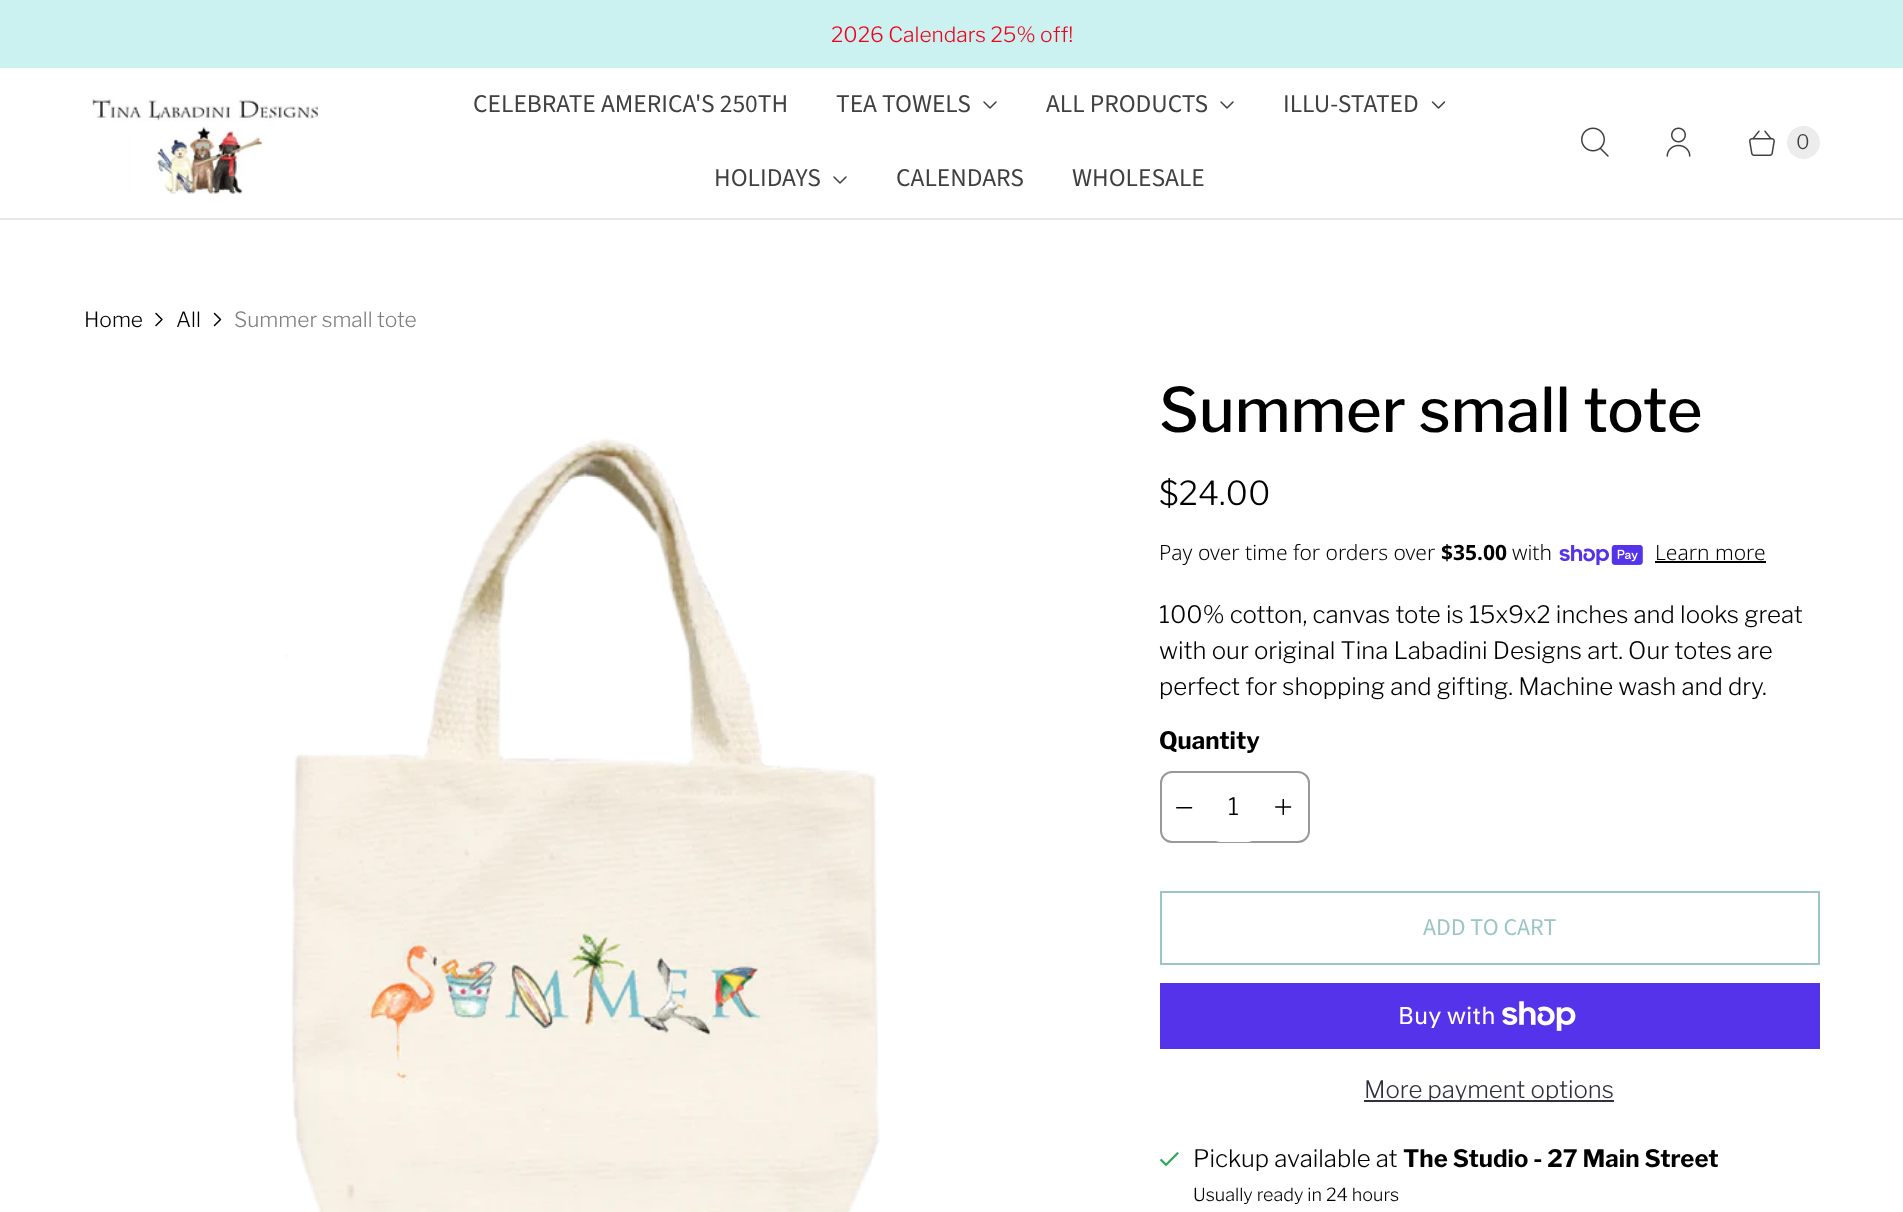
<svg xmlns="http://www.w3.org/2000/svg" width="1903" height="1212">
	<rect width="100%" height="100%" fill="#FFFFFF" />
	<rect x="0" y="0" width="1903" height="68" fill="#CBF1F1" />
	<text x="831" y="42" font-family="Libre Franklin" font-size="21" font-weight="300" fill="#F2031A">2026 Calendars 25% off!</text>
	<rect x="0" y="218" width="1903" height="2" fill="#E7E7E7" />
	<image x="89" y="98" width="230" height="96" href="assets/img1.png" />
	<g font-family="Source Sans Pro" font-size="25.5" fill="#404040">
		<text x="473" y="112">CELEBRATE AMERICA'S 250TH</text>
		<text x="836" y="112">TEA TOWELS</text>
	</g>
	<image x="983" y="101" width="14" height="8" href="assets/img2.png" />
	<text x="1046" y="112" font-family="Source Sans Pro" font-size="25.5" fill="#404040">ALL PRODUCTS</text>
	<image x="1220" y="101" width="14" height="8" href="assets/img2.png" />
	<text x="1283" y="112" font-family="Source Sans Pro" font-size="25.5" fill="#404040">ILLU-STATED</text>
	<image x="1431" y="101" width="15" height="8" href="assets/img3.png" />
	<text x="714" y="186" font-family="Source Sans Pro" font-size="25.5" fill="#404040">HOLIDAYS</text>
	<image x="833" y="176" width="14" height="8" href="assets/img2.png" />
	<g font-family="Source Sans Pro" font-size="25.5" fill="#404040">
		<text x="896" y="186">CALENDARS</text>
		<text x="1072" y="186">WHOLESALE</text>
	</g>
	<image x="1581" y="127" width="28" height="30" href="assets/img4.png" />
	<image x="1666" y="127" width="25" height="30" href="assets/img5.png" />
	<image x="1749" y="130" width="26" height="26" href="assets/img6.png" />
	<circle cx="1803.5" cy="142.5" r="16.5" fill="#ECECEC" />
	<text x="1796" y="149" font-family="Libre Franklin" font-size="20" font-weight="300" fill="#404040">0</text>
	<text x="84" y="327" font-family="Libre Franklin" font-size="21" font-weight="300" fill="#000000">Home</text>
	<image x="155" y="312" width="8" height="15" href="assets/img7.png" />
	<text x="176" y="327" font-family="Libre Franklin" font-size="21" font-weight="300" fill="#000000">All</text>
	<image x="213" y="312" width="9" height="15" href="assets/img8.png" />
	<text x="234" y="327" font-family="Libre Franklin" font-size="21" font-weight="300" fill="#808080">Summer small tote</text>
	<image x="285" y="438" width="595" height="774" href="assets/img9.png" />
	<text x="1159" y="432" font-family="Libre Franklin" font-size="61.25" font-weight="500" fill="#000000">Summer small tote</text>
	<text x="1159" y="505" font-family="Libre Franklin" font-size="33" font-weight="300" fill="#000000">$24.00</text>
	<text x="1159" y="560" font-family="Noto Sans" font-size="21" font-weight="300" fill="#000000">Pay over time for orders over</text>
	<text x="1441" y="560" font-family="Noto Sans" font-size="21" font-weight="700" fill="#000000">$35.00</text>
	<text x="1512" y="560" font-family="Noto Sans" font-size="21" font-weight="300" fill="#000000">with</text>
	<image x="1559" y="545" width="84" height="21" href="assets/img10.png" />
	<text x="1655" y="560" font-family="Noto Sans" font-size="21" font-weight="300" fill="#000000">Learn more</text>
	<rect x="1655" y="561" width="111" height="2" fill="#000000" />
	<g font-family="Libre Franklin" font-size="24" font-weight="300" fill="#000000">
		<text x="1159" y="623">100% cotton, canvas tote is 15x9x2 inches and looks great</text>
		<text x="1159" y="659">with our original Tina Labadini Designs art. Our totes are</text>
		<text x="1159" y="695">perfect for shopping and gifting. Machine wash and dry.</text>
	</g>
	<text x="1159" y="749" font-family="Libre Franklin" font-size="24" font-weight="700" fill="#000000">Quantity</text>
	<rect x="1161" y="772" width="148" height="70" rx="11" fill="none" stroke="#999999" stroke-width="2" />
	<image x="1176" y="807" width="17" height="2" href="assets/img11.png" />
	<rect x="1209" y="773" width="50" height="69" rx="12" fill="#FFFFFF" />
	<text x="1228" y="815" font-family="Libre Franklin" font-size="24" font-weight="300" fill="#000000">1</text>
	<image x="1275" y="799" width="17" height="16" href="assets/img12.png" />
	<rect x="1161" y="892" width="658" height="72" fill="none" stroke="#9AC6C4" stroke-width="2" />
	<text x="1423" y="935" font-family="Source Sans Pro" font-size="24" fill="#9AC6C4">ADD TO CART</text>
	<rect x="1160" y="983" width="660" height="66" fill="#5433EB" />
	<text x="1398" y="1024" font-family="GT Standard" font-size="24" fill="#FFFFFF">Buy with</text>
	<image x="1502" y="1001" width="74" height="30" href="assets/img13.png" />
	<rect x="1364" y="1100" width="250" height="2" fill="#32303D" />
	<text x="1364" y="1098" font-family="Libre Franklin" font-size="24" font-weight="300" fill="#32303D">More payment options</text>
	<image x="1160" y="1152" width="19" height="15" href="assets/img14.png" />
	<text x="1193" y="1167" font-family="Libre Franklin" font-size="24" font-weight="300" fill="#000000">Pickup available at</text>
	<text x="1403" y="1167" font-family="Libre Franklin" font-size="24" font-weight="700" fill="#000000">The Studio - 27 Main Street</text>
	<text x="1193" y="1201" font-family="Libre Franklin" font-size="18" font-weight="300" fill="#000000">Usually ready in 24 hours</text>
</svg>
